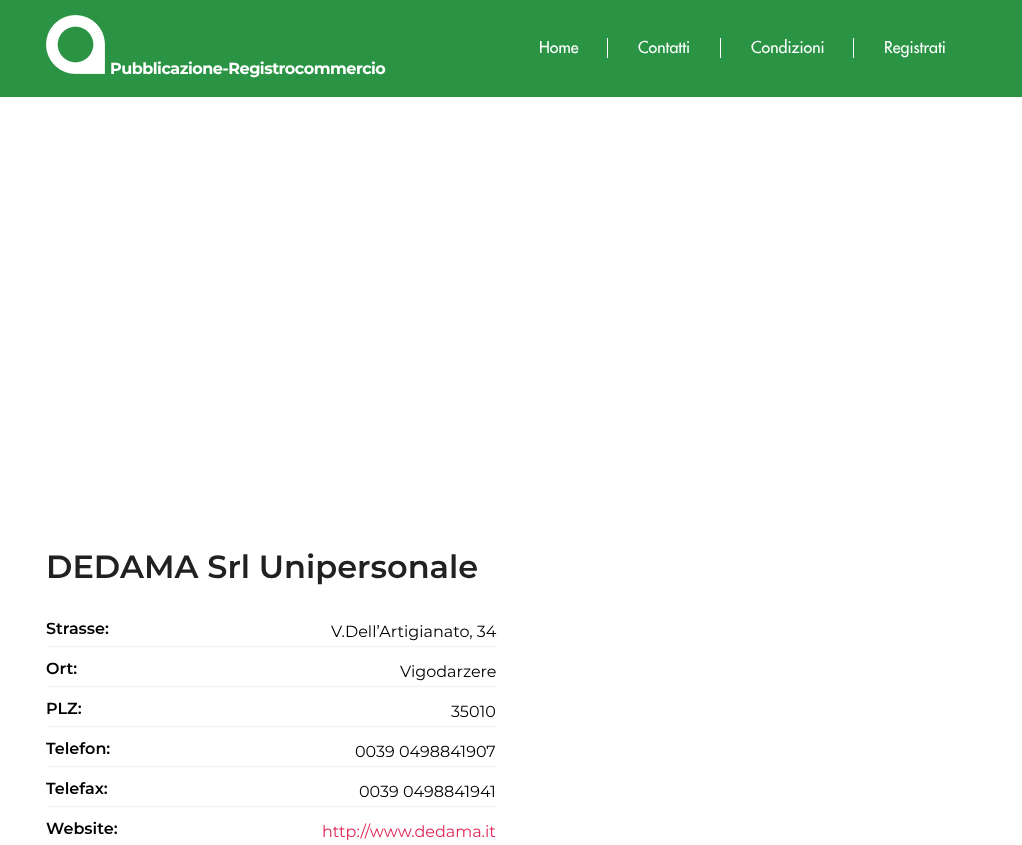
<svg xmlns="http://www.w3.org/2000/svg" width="1022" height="845">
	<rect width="100%" height="100%" fill="#FFFFFF" />
	<rect x="0" y="0" width="1022" height="97" fill="#2A9344" />
	<text x="539" y="53" font-family="Futura" font-size="16" font-weight="500" fill="#FFFFFF">Home</text>
	<rect x="607" y="38" width="1" height="20" fill="#FFFFFF" />
	<text x="638" y="53" font-family="Futura" font-size="16" font-weight="500" fill="#FFFFFF">Contatti</text>
	<rect x="720" y="38" width="1" height="20" fill="#FFFFFF" />
	<text x="751" y="53" font-family="Futura" font-size="16" font-weight="500" fill="#FFFFFF">Condizioni</text>
	<rect x="853" y="38" width="1" height="20" fill="#FFFFFF" />
	<text x="884" y="53" font-family="Futura" font-size="16" font-weight="500" fill="#FFFFFF">Registrati</text>
	<image x="46" y="15" width="59" height="59" href="assets/img1.png" />
	<text x="110" y="74" font-family="Montserrat" font-size="16" font-weight="700" letter-spacing="-0.5" fill="#FFFFFF">Pubblicazione-Registrocommercio</text>
	<text x="46" y="578" font-family="Montserrat" font-size="32" font-weight="600" fill="#212121">DEDAMA Srl Unipersonale</text>
	<rect x="46" y="646" width="450" height="1" fill="#F2F2F2" />
	<text x="46" y="634" font-family="Montserrat" font-size="16" font-weight="600" fill="#000000">Strasse:</text>
	<text x="331" y="637" font-family="Montserrat" font-size="16" fill="#000000">V.Dell’Artigianato, 34</text>
	<rect x="46" y="686" width="450" height="1" fill="#F2F2F2" />
	<text x="46" y="674" font-family="Montserrat" font-size="16" font-weight="600" fill="#000000">Ort:</text>
	<text x="400" y="677" font-family="Montserrat" font-size="16" fill="#000000">Vigodarzere</text>
	<rect x="46" y="726" width="450" height="1" fill="#F2F2F2" />
	<text x="46" y="714" font-family="Montserrat" font-size="16" font-weight="600" fill="#000000">PLZ:</text>
	<text x="451" y="717" font-family="Montserrat" font-size="16" fill="#000000">35010</text>
	<rect x="46" y="766" width="450" height="1" fill="#F2F2F2" />
	<text x="46" y="754" font-family="Montserrat" font-size="16" font-weight="600" fill="#000000">Telefon:</text>
	<text x="355" y="757" font-family="Montserrat" font-size="16" fill="#000000">0039 0498841907</text>
	<rect x="46" y="806" width="450" height="1" fill="#F2F2F2" />
	<text x="46" y="794" font-family="Montserrat" font-size="16" font-weight="600" fill="#000000">Telefax:</text>
	<text x="359" y="797" font-family="Montserrat" font-size="16" fill="#000000">0039 0498841941</text>
	<text x="46" y="834" font-family="Montserrat" font-size="16" font-weight="600" fill="#000000">Website:</text>
	<text x="322" y="837" font-family="Montserrat" font-size="16" fill="#E22658">http://www.dedama.it</text>
</svg>
